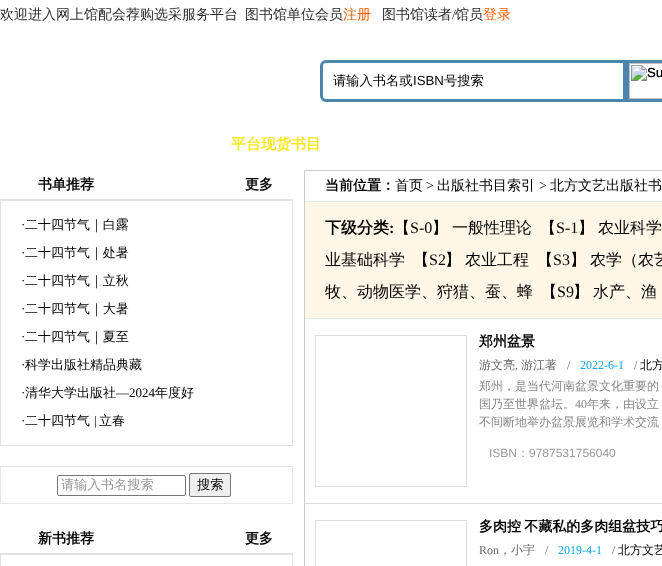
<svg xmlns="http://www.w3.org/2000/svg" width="662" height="566">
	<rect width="100%" height="100%" fill="#FFFFFF" />
	<g font-family="WenQuanYi Zen Hei" font-size="14" font-weight="500" fill="#2C2C2C">
		<text x="0" y="19">欢迎进入网上馆配会荐购选采服务平台</text>
		<text x="245" y="19">图书馆单位会员</text>
	</g>
	<text x="343" y="19" font-family="WenQuanYi Zen Hei" font-size="14" font-weight="500" fill="#FE5B00">注册</text>
	<text x="382" y="19" font-family="WenQuanYi Zen Hei" font-size="14" font-weight="500" fill="#2C2C2C">图书馆读者</text>
	<text x="452" y="19" font-family="Liberation Serif" font-size="14" fill="#2C2C2C">/</text>
	<text x="455" y="19" font-family="WenQuanYi Zen Hei" font-size="14" font-weight="500" fill="#2C2C2C">馆员</text>
	<text x="483" y="19" font-family="WenQuanYi Zen Hei" font-size="14" font-weight="500" fill="#FE5B00">登录</text>
	<path d="M326 61.5H624.5V100.5H326C323.5 100.5 321.5 98.5 321.5 96V66C321.5 63.5 323.5 61.5 326 61.5Z" fill="none" stroke="#4C86AC" stroke-width="3" />
	<text x="333" y="85" font-family="WenQuanYi Zen Hei" font-size="13.25" font-weight="500" fill="#000000">请输入书名或</text>
	<text x="413" y="85" font-family="Liberation Sans" font-size="13.25" fill="#000000">ISBN</text>
	<text x="444" y="85" font-family="WenQuanYi Zen Hei" font-size="13.25" font-weight="500" fill="#000000">号搜索</text>
	<rect x="627.5" y="61.5" width="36" height="39" fill="none" stroke="#4C86AC" stroke-width="3" />
	<image x="629" y="63" width="33" height="36" href="assets/img1.png" />
	<text x="647" y="77" font-family="Liberation Sans" font-size="13.25" fill="#000000">Su</text>
	<text x="231" y="149" font-family="WenQuanYi Zen Hei" font-size="15" font-weight="700" fill="#F8E81F">平台现货书目</text>
	<rect x="0" y="199" width="293" height="1" fill="#E3E3E3" />
	<g font-family="WenQuanYi Zen Hei" font-size="14" font-weight="700" fill="#000000">
		<text x="38" y="189">书单推荐</text>
		<text x="245" y="189">更多</text>
	</g>
	<rect x="0.5" y="200.5" width="292" height="245" fill="none" stroke="#E3E3E3" />
	<text x="21" y="229" font-family="Liberation Serif" font-size="13" fill="#000000">·</text>
	<text x="25" y="229" font-family="WenQuanYi Zen Hei" font-size="13" font-weight="500" fill="#000000">二十四节气｜白露</text>
	<text x="21" y="257" font-family="Liberation Serif" font-size="13" fill="#000000">·</text>
	<text x="25" y="257" font-family="WenQuanYi Zen Hei" font-size="13" font-weight="500" fill="#000000">二十四节气｜处暑</text>
	<text x="21" y="285" font-family="Liberation Serif" font-size="13" fill="#000000">·</text>
	<text x="25" y="285" font-family="WenQuanYi Zen Hei" font-size="13" font-weight="500" fill="#000000">二十四节气｜立秋</text>
	<text x="21" y="313" font-family="Liberation Serif" font-size="13" fill="#000000">·</text>
	<text x="25" y="313" font-family="WenQuanYi Zen Hei" font-size="13" font-weight="500" fill="#000000">二十四节气｜大暑</text>
	<text x="21" y="341" font-family="Liberation Serif" font-size="13" fill="#000000">·</text>
	<text x="25" y="341" font-family="WenQuanYi Zen Hei" font-size="13" font-weight="500" fill="#000000">二十四节气｜夏至</text>
	<text x="21" y="369" font-family="Liberation Serif" font-size="13" fill="#000000">·</text>
	<text x="25" y="369" font-family="WenQuanYi Zen Hei" font-size="13" font-weight="500" fill="#000000">科学出版社精品典藏</text>
	<text x="21" y="397" font-family="Liberation Serif" font-size="13" fill="#000000">·</text>
	<text x="25" y="397" font-family="WenQuanYi Zen Hei" font-size="13" font-weight="500" fill="#000000">清华大学出版社</text>
	<text x="116" y="397" font-family="Liberation Serif" font-size="13" fill="#000000">—2024</text>
	<text x="155" y="397" font-family="WenQuanYi Zen Hei" font-size="13" font-weight="500" fill="#000000">年度好</text>
	<text x="21" y="425" font-family="Liberation Serif" font-size="13" fill="#000000">·</text>
	<text x="25" y="425" font-family="WenQuanYi Zen Hei" font-size="13" font-weight="500" fill="#000000">二十四节气</text>
	<text x="94" y="425" font-family="Liberation Serif" font-size="13" fill="#000000">|</text>
	<text x="99" y="425" font-family="WenQuanYi Zen Hei" font-size="13" font-weight="500" fill="#000000">立春</text>
	<rect x="0.5" y="466.5" width="292" height="37" fill="none" stroke="#E6E6E6" />
	<rect x="57.5" y="475.5" width="128" height="20" rx="1.5" fill="none" stroke="#767676" />
	<text x="61" y="489" font-family="WenQuanYi Zen Hei" font-size="13.25" font-weight="500" fill="#999999">请输入书名搜索</text>
	<rect x="189.5" y="473.5" width="41" height="23" rx="1.5" fill="#EFEFEF" stroke="#767676" />
	<text x="197" y="489" font-family="WenQuanYi Zen Hei" font-size="13.25" font-weight="500" fill="#000000">搜索</text>
	<rect x="0" y="553" width="293" height="1" fill="#E3E3E3" />
	<g font-family="WenQuanYi Zen Hei" font-size="14" font-weight="700" fill="#000000">
		<text x="38" y="543">新书推荐</text>
		<text x="245" y="543">更多</text>
	</g>
	<rect x="0.5" y="554.5" width="292" height="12" fill="none" stroke="#E3E3E3" />
	<rect x="304.5" y="170.5" width="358" height="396" fill="none" stroke="#CCCCCC" />
	<rect x="305" y="201" width="357" height="1" fill="#E3E3E3" />
	<text x="325" y="190" font-family="WenQuanYi Zen Hei" font-size="14" font-weight="700" fill="#000000">当前位置：</text>
	<text x="395" y="190" font-family="WenQuanYi Zen Hei" font-size="14" font-weight="500" fill="#000000">首页</text>
	<text x="426" y="190" font-family="Liberation Serif" font-size="14" fill="#000000">&gt;</text>
	<text x="437" y="190" font-family="WenQuanYi Zen Hei" font-size="14" font-weight="500" fill="#000000">出版社书目索引</text>
	<text x="539" y="190" font-family="Liberation Serif" font-size="14" fill="#000000">&gt;</text>
	<text x="550" y="190" font-family="WenQuanYi Zen Hei" font-size="14" font-weight="500" fill="#000000">北方文艺出版社书</text>
	<rect x="305" y="202" width="357" height="116" fill="#FEF7E7" />
	<rect x="305" y="318" width="357" height="1" fill="#E3E3E3" />
	<text x="325" y="233" font-family="WenQuanYi Zen Hei" font-size="16" font-weight="700" fill="#000000">下级分类</text>
	<text x="389" y="233" font-family="Liberation Serif" font-size="16" font-weight="700" fill="#000000">:</text>
	<text x="394" y="233" font-family="WenQuanYi Zen Hei" font-size="16" font-weight="500" fill="#000000">【</text>
	<text x="410" y="233" font-family="Liberation Serif" font-size="16" fill="#000000">S-0</text>
	<g font-family="WenQuanYi Zen Hei" font-size="16" font-weight="500" fill="#000000">
		<text x="432" y="233">】</text>
		<text x="452" y="233">一般性理论</text>
		<text x="540" y="233">【</text>
	</g>
	<text x="556" y="233" font-family="Liberation Serif" font-size="16" fill="#000000">S-1</text>
	<g font-family="WenQuanYi Zen Hei" font-size="16" font-weight="500" fill="#000000">
		<text x="578" y="233">】</text>
		<text x="598" y="233">农业科学</text>
		<text x="325" y="265">业基础科学</text>
		<text x="413" y="265">【</text>
	</g>
	<text x="429" y="265" font-family="Liberation Serif" font-size="16" fill="#000000">S2</text>
	<g font-family="WenQuanYi Zen Hei" font-size="16" font-weight="500" fill="#000000">
		<text x="445" y="265">】</text>
		<text x="465" y="265">农业工程</text>
		<text x="537" y="265">【</text>
	</g>
	<text x="553" y="265" font-family="Liberation Serif" font-size="16" fill="#000000">S3</text>
	<g font-family="WenQuanYi Zen Hei" font-size="16" font-weight="500" fill="#000000">
		<text x="570" y="265">】</text>
		<text x="590" y="265">农学（农艺</text>
		<text x="325" y="297">牧、动物医学、狩猎、蚕、蜂</text>
		<text x="541" y="297">【</text>
	</g>
	<text x="557" y="297" font-family="Liberation Serif" font-size="16" fill="#000000">S9</text>
	<g font-family="WenQuanYi Zen Hei" font-size="16" font-weight="500" fill="#000000">
		<text x="573" y="297">】</text>
		<text x="593" y="297">水产、渔</text>
	</g>
	<rect x="305" y="503" width="357" height="1" fill="#DDDDDD" />
	<rect x="315.5" y="335.5" width="151" height="151" fill="none" stroke="#DDDDDD" />
	<text x="479" y="346" font-family="WenQuanYi Zen Hei" font-size="14" font-weight="700" fill="#000000">郑州盆景</text>
	<text x="479" y="369" font-family="WenQuanYi Zen Hei" font-size="12" font-weight="500" fill="#666666">游文亮</text>
	<text x="515" y="369" font-family="Liberation Serif" font-size="12" fill="#666666">,</text>
	<text x="521" y="369" font-family="WenQuanYi Zen Hei" font-size="12" font-weight="500" fill="#666666">游江著</text>
	<text x="567" y="369" font-family="Liberation Serif" font-size="12" fill="#666666">/</text>
	<text x="580" y="369" font-family="Liberation Serif" font-size="12" fill="#0BA8EA">2022-6-1</text>
	<text x="634" y="369" font-family="Liberation Serif" font-size="12" fill="#666666">/</text>
	<text x="640" y="369" font-family="WenQuanYi Zen Hei" font-size="12" font-weight="500" fill="#000000">北方</text>
	<g font-family="WenQuanYi Zen Hei" font-size="12" font-weight="500" fill="#878787">
		<text x="479" y="390">郑州，是当代河南盆景文化重要的</text>
		<text x="479" y="408">国乃至世界盆坛。</text>
	</g>
	<text x="575" y="408" font-family="Liberation Serif" font-size="12" fill="#878787">40</text>
	<g font-family="WenQuanYi Zen Hei" font-size="12" font-weight="500" fill="#878787">
		<text x="587" y="408">年来，由设立</text>
		<text x="479" y="426">不间断地举办盆景展览和学术交流</text>
	</g>
	<text x="489" y="457" font-family="Liberation Sans" font-size="12" fill="#999999">ISBN</text>
	<text x="517" y="457" font-family="WenQuanYi Zen Hei" font-size="12" font-weight="500" fill="#999999">：</text>
	<text x="529" y="457" font-family="Liberation Sans" font-size="12" fill="#999999">9787531756040</text>
	<rect x="315.5" y="520.5" width="151" height="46" fill="none" stroke="#DDDDDD" />
	<text x="479" y="531" word-spacing="-1" font-family="WenQuanYi Zen Hei" font-size="14" font-weight="700" fill="#000000">多肉控 不藏私的多肉组盆技巧</text>
	<text x="479" y="554" font-family="Liberation Serif" font-size="12" fill="#666666">Ron</text>
	<text x="499" y="554" font-family="WenQuanYi Zen Hei" font-size="12" font-weight="500" fill="#666666">，小宇</text>
	<text x="545" y="554" font-family="Liberation Serif" font-size="12" fill="#666666">/</text>
	<text x="558" y="554" font-family="Liberation Serif" font-size="12" fill="#0BA8EA">2019-4-1</text>
	<text x="612" y="554" font-family="Liberation Serif" font-size="12" fill="#666666">/</text>
	<text x="618" y="554" font-family="WenQuanYi Zen Hei" font-size="12" font-weight="500" fill="#000000">北方文艺</text>
</svg>
